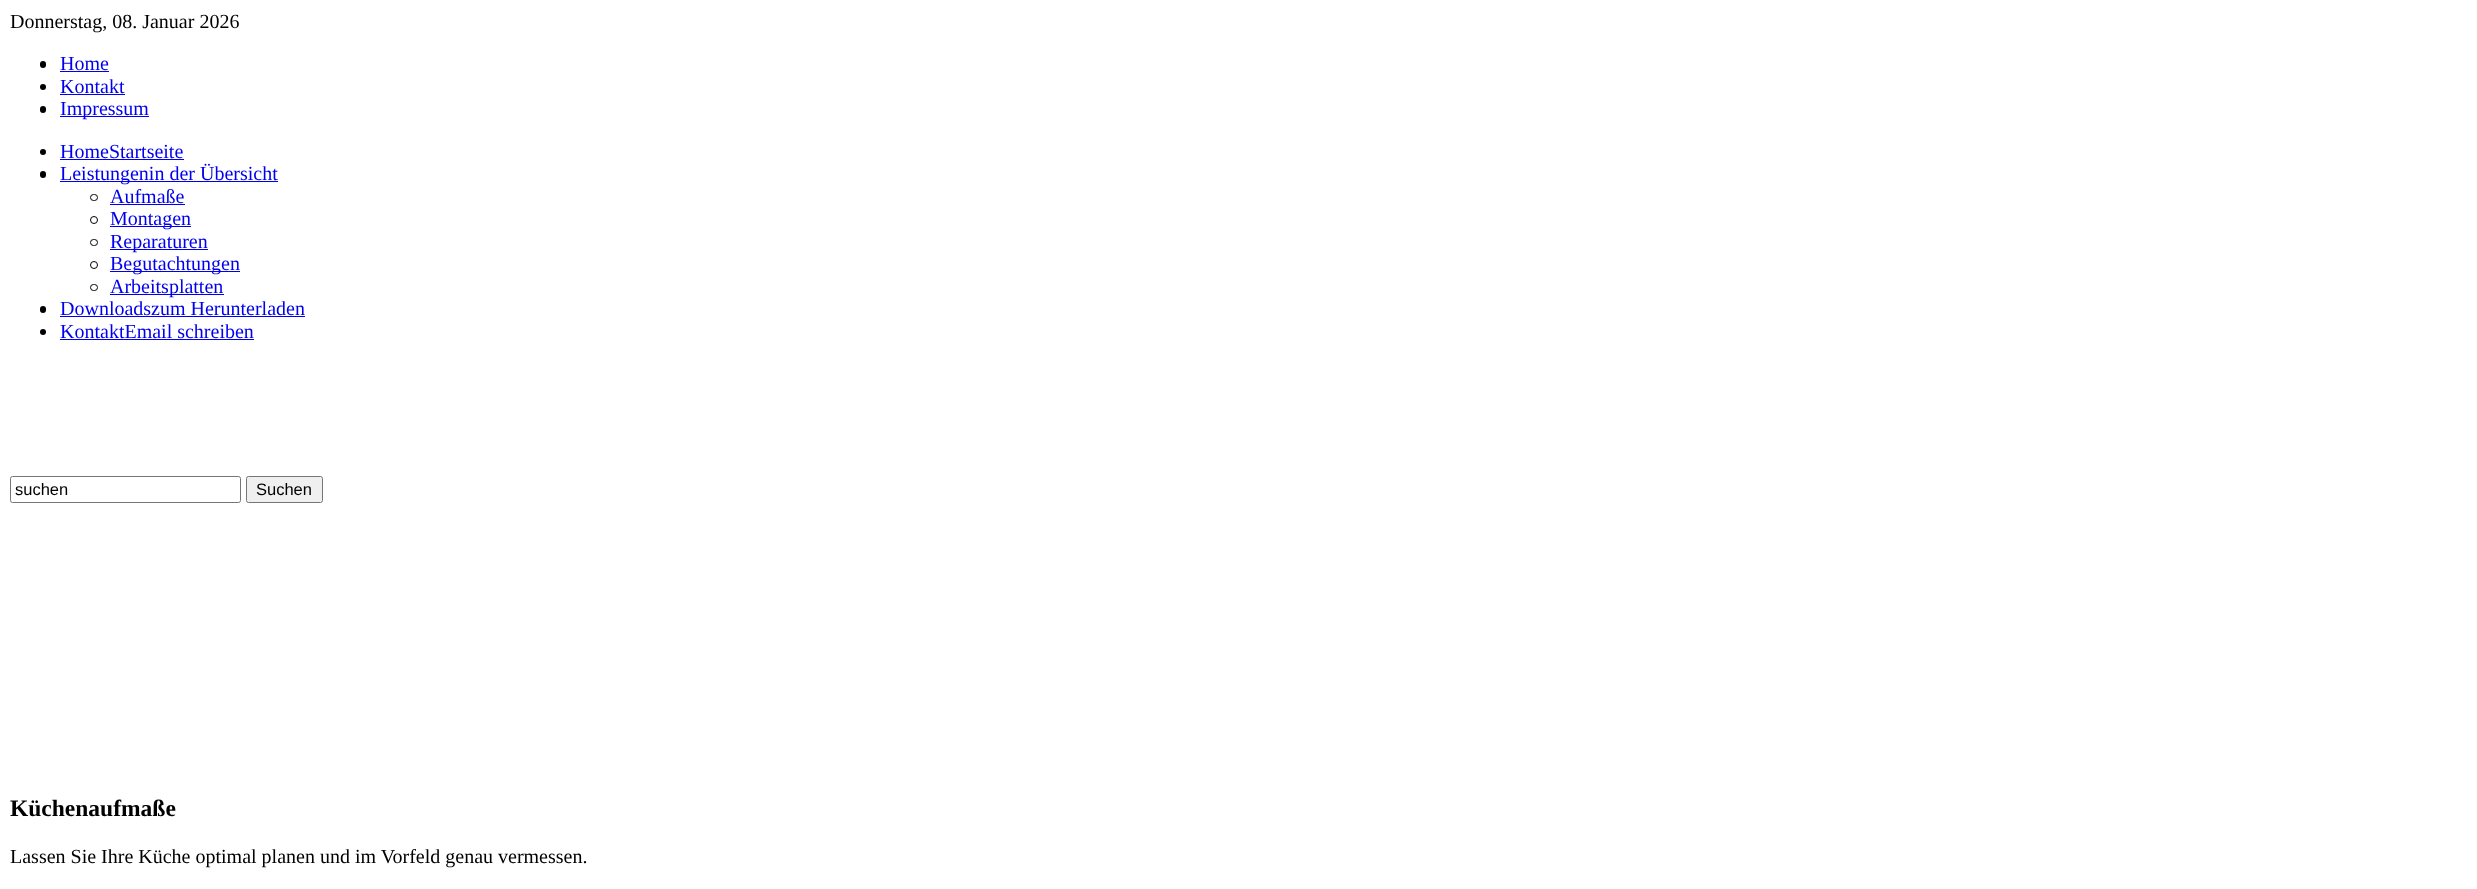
<svg xmlns="http://www.w3.org/2000/svg" width="2477" height="889">
	<rect width="100%" height="100%" fill="#FFFFFF" />
	<text x="10" y="28" font-family="Liberation Serif" font-size="20" fill="#000000">Donnerstag, 08. Januar 2026</text>
	<rect x="40" y="61" width="6" height="7" rx="3" fill="#000000" />
	<text x="60" y="70" font-family="Liberation Serif" font-size="20" fill="#0000EE">Home</text>
	<rect x="60" y="71" width="49" height="1" fill="#0000EE" />
	<circle cx="43" cy="87" r="3" fill="#000000" />
	<text x="60" y="93" font-family="Liberation Serif" font-size="20" fill="#0000EE">Kontakt</text>
	<rect x="60" y="94" width="65" height="1" fill="#0000EE" />
	<rect x="40" y="106" width="6" height="7" rx="3" fill="#000000" />
	<rect x="60" y="116" width="89" height="1" fill="#0000EE" />
	<text x="60" y="115" font-family="Liberation Serif" font-size="20" fill="#0000EE">Impressum</text>
	<circle cx="43" cy="152" r="3" fill="#000000" />
	<text x="60" y="158" font-family="Liberation Serif" font-size="20" fill="#0000EE">HomeStartseite</text>
	<rect x="60" y="159" width="124" height="1" fill="#0000EE" />
	<rect x="40" y="171" width="6" height="7" rx="3" fill="#000000" />
	<rect x="60" y="181" width="218" height="1" fill="#0000EE" />
	<text x="60" y="180" font-family="Liberation Serif" font-size="20" fill="#0000EE">Leistungenin der Übersicht</text>
	<rect x="90.5" y="194.5" width="7" height="6" rx="3" fill="none" stroke="#000000" />
	<text x="110" y="203" font-family="Liberation Serif" font-size="20" fill="#0000EE">Aufmaße</text>
	<rect x="110" y="204" width="75" height="1" fill="#0000EE" />
	<circle cx="94" cy="220" r="3.5" fill="none" stroke="#000000" />
	<rect x="110" y="226" width="81" height="1" fill="#0000EE" />
	<text x="110" y="225" font-family="Liberation Serif" font-size="20" fill="#0000EE">Montagen</text>
	<rect x="90.5" y="239.5" width="7" height="6" rx="3" fill="none" stroke="#000000" />
	<rect x="110" y="249" width="98" height="1" fill="#0000EE" />
	<text x="110" y="248" font-family="Liberation Serif" font-size="20" fill="#0000EE">Reparaturen</text>
	<circle cx="94" cy="265" r="3.5" fill="none" stroke="#000000" />
	<rect x="110" y="271" width="130" height="1" fill="#0000EE" />
	<text x="110" y="270" font-family="Liberation Serif" font-size="20" fill="#0000EE">Begutachtungen</text>
	<rect x="90.5" y="284.5" width="7" height="6" rx="3" fill="none" stroke="#000000" />
	<rect x="110" y="294" width="114" height="1" fill="#0000EE" />
	<text x="110" y="293" font-family="Liberation Serif" font-size="20" fill="#0000EE">Arbeitsplatten</text>
	<rect x="40" y="306" width="6" height="7" rx="3" fill="#000000" />
	<text x="60" y="315" font-family="Liberation Serif" font-size="20" fill="#0000EE">Downloadszum Herunterladen</text>
	<rect x="60" y="316" width="245" height="1" fill="#0000EE" />
	<circle cx="43" cy="332" r="3" fill="#000000" />
	<text x="60" y="338" font-family="Liberation Serif" font-size="20" fill="#0000EE">KontaktEmail schreiben</text>
	<rect x="60" y="339" width="194" height="1" fill="#0000EE" />
	<rect x="10.5" y="476.5" width="230" height="26" rx="2" fill="none" stroke="#767676" />
	<text x="15" y="495" font-family="Liberation Sans" font-size="16.5" fill="#000000">suchen</text>
	<rect x="246.5" y="476.5" width="76" height="26" rx="2" fill="#EFEFEF" stroke="#767676" />
	<text x="256" y="495" font-family="Liberation Sans" font-size="16.5" fill="#000000">Suchen</text>
	<text x="10" y="816" font-family="Liberation Serif" font-size="23.5" font-weight="700" fill="#000000">Küchenaufmaße</text>
	<text x="10" y="863" font-family="Liberation Serif" font-size="20" fill="#000000">Lassen Sie Ihre Küche optimal planen und im Vorfeld genau vermessen.</text>
</svg>
